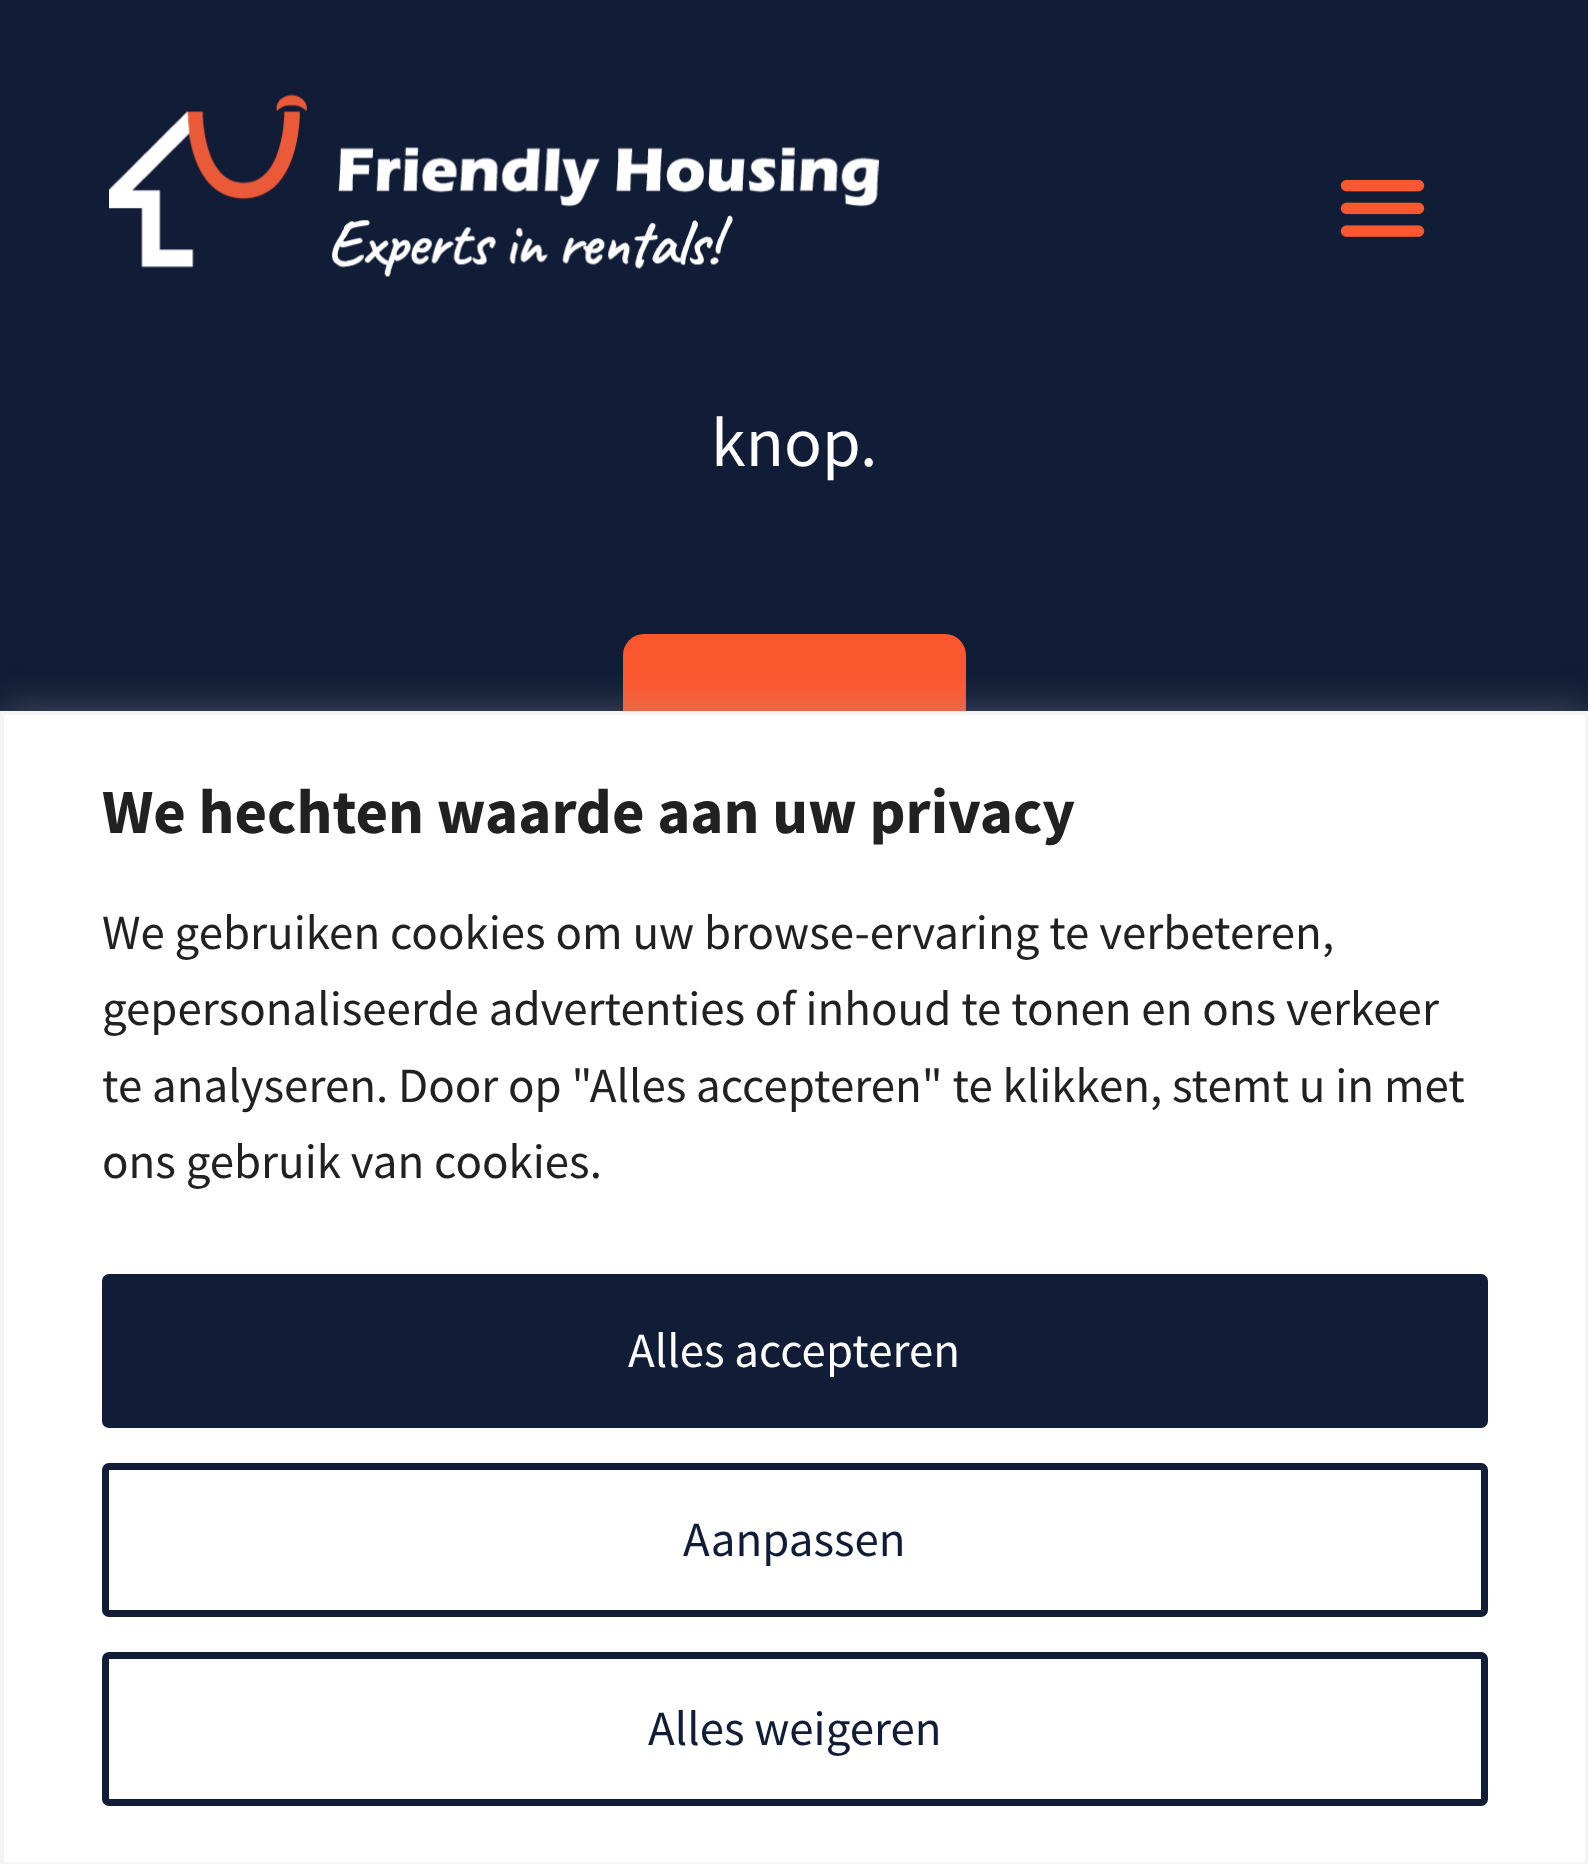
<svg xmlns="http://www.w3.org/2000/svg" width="1588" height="1864">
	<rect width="100%" height="100%" fill="#111C36" />
	<image x="109" y="94" width="770" height="183" href="assets/img1.png" />
	<image x="1340" y="179" width="85" height="58" href="assets/img2.png" />
	<text x="711" y="466" font-family="Source Sans Pro" font-size="70" fill="#FDFDFD">knop.</text>
	<rect x="623" y="634" width="343" height="192" rx="21" fill="#FC5830" />
	<rect x="0" y="707" width="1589" height="1155" fill="#ACABAB" fill-opacity="0.3" filter="blur(17.5px)" />
	<rect x="2" y="713" width="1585" height="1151" fill="#FFFFFF" stroke="#F4F4F4" stroke-width="4" />
	<text x="102" y="833" font-family="Source Sans Pro" font-size="63" font-weight="700" fill="#212121">We hechten waarde aan uw privacy</text>
	<g font-family="Source Sans Pro" font-size="49" fill="#212121">
		<text x="102" y="949">We gebruiken cookies om uw browse-ervaring te verbeteren,</text>
		<text x="102" y="1025">gepersonaliseerde advertenties of inhoud te tonen en ons verkeer</text>
		<text x="102" y="1102">te analyseren. Door op "Alles accepteren" te klikken, stemt u in met</text>
		<text x="102" y="1178">ons gebruik van cookies.</text>
	</g>
	<rect x="105.5" y="1277.5" width="1379" height="147" rx="3.5" fill="#111C36" stroke="#111C36" stroke-width="7" />
	<text x="628" y="1367" font-family="Source Sans Pro" font-size="49" fill="#FDFDFD">Alles accepteren</text>
	<rect x="105.5" y="1466.5" width="1379" height="147" rx="3.5" fill="none" stroke="#111C36" stroke-width="7" />
	<text x="683" y="1556" font-family="Source Sans Pro" font-size="49" fill="#111C36">Aanpassen</text>
	<rect x="105.5" y="1655.5" width="1379" height="147" rx="3.5" fill="none" stroke="#111C36" stroke-width="7" />
	<text x="648" y="1745" font-family="Source Sans Pro" font-size="49" fill="#111C36">Alles weigeren</text>
</svg>
